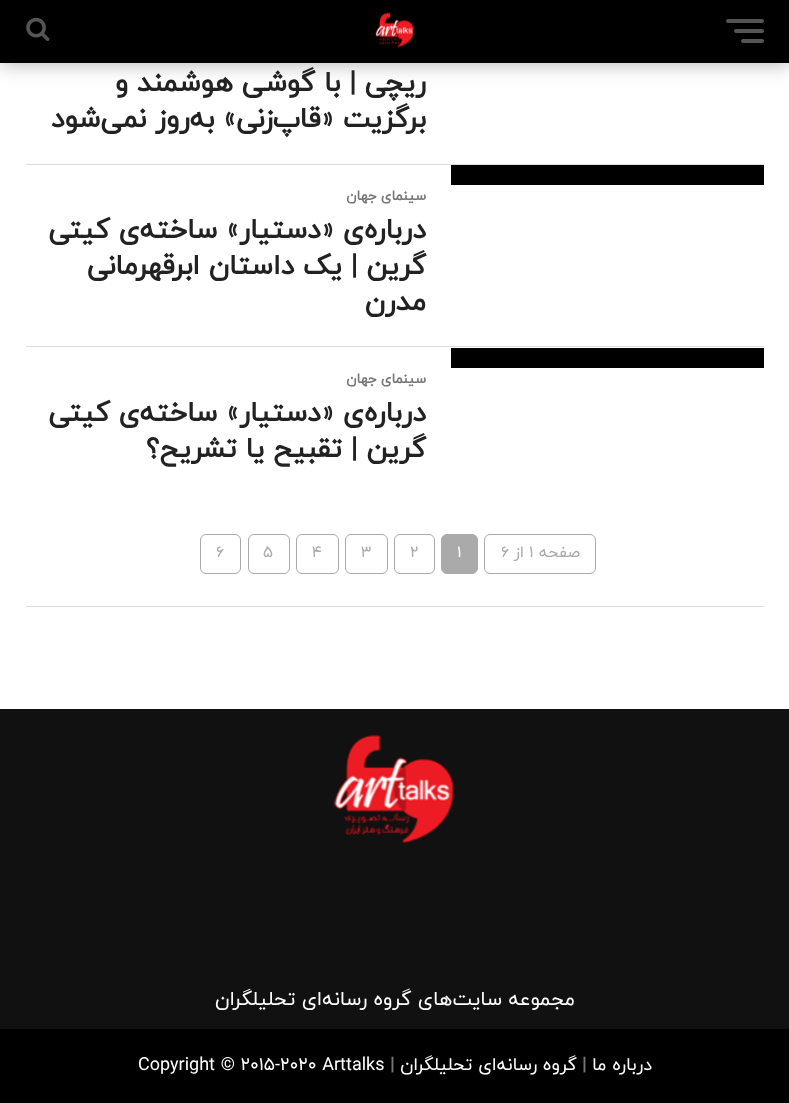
<svg xmlns="http://www.w3.org/2000/svg" width="789" height="1103">
	<rect width="100%" height="100%" fill="#FFFFFF" />
	<rect x="0" y="1" width="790" height="63" fill="#000000" fill-opacity="0.3" filter="blur(10px)" />
	<rect x="0" y="0" width="789" height="63" fill="#000000" />
	<rect x="726" y="19" width="38" height="4" rx="2" fill="#555555" />
	<rect x="734" y="29" width="30" height="4" rx="2" fill="#555555" />
	<rect x="741" y="39" width="23" height="4" rx="2" fill="#555555" />
	<image x="375" y="12" width="39" height="36" href="assets/img1.png" />
	<image x="26" y="17" width="24" height="24" href="assets/img2.png" />
	<g font-family="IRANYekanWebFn" font-size="28" font-weight="700" direction="rtl" fill="#222222">
		<text x="426" y="91">ریچی | با گوشی هوشمند و</text>
		<text x="426" y="127">برگزیت «قاپ‌زنی» به‌روز نمی‌شود</text>
	</g>
	<rect x="26" y="164" width="738" height="1" fill="#DDDDDD" />
	<rect x="451" y="165" width="313" height="20" fill="#000000" />
	<text x="426" y="200" font-family="IRANYekanWebFn" font-size="14" font-weight="700" direction="rtl" fill="#777777">سینمای جهان</text>
	<g font-family="IRANYekanWebFn" font-size="28" font-weight="700" direction="rtl" fill="#222222">
		<text x="426" y="238">درباره‌ی «دستیار» ساخته‌ی کیتی</text>
		<text x="426" y="274">گرین | یک داستان ابرقهرمانی</text>
		<text x="426" y="310">مدرن</text>
	</g>
	<rect x="26" y="346" width="738" height="1" fill="#DDDDDD" />
	<rect x="451" y="348" width="313" height="20" fill="#000000" />
	<text x="426" y="383" font-family="IRANYekanWebFn" font-size="14" font-weight="700" direction="rtl" fill="#777777">سینمای جهان</text>
	<g font-family="IRANYekanWebFn" font-size="28" font-weight="700" direction="rtl" fill="#222222">
		<text x="426" y="421">درباره‌ی «دستیار» ساخته‌ی کیتی</text>
		<text x="426" y="457">گرین | تقبیح یا تشریح؟</text>
	</g>
	<rect x="484.5" y="534.5" width="111" height="39" rx="5.5" fill="none" stroke="#AAAAAA" />
	<text x="580" y="557" font-family="IRANYekanWebFn" font-size="16" direction="rtl" fill="#AAAAAA">صفحه</text>
	<text x="529" y="557" font-family="IRANYekanWebFn" font-size="16" fill="#AAAAAA">1</text>
	<text x="524" y="557" font-family="IRANYekanWebFn" font-size="16" direction="rtl" fill="#AAAAAA">از</text>
	<text x="501" y="557" font-family="IRANYekanWebFn" font-size="16" fill="#AAAAAA">6</text>
	<rect x="441.5" y="534.5" width="36" height="39" rx="5.5" fill="#AAAAAA" stroke="#AAAAAA" />
	<text x="457" y="557" font-family="IRANYekanWebFn" font-size="16" fill="#FFFFFF">1</text>
	<rect x="394.5" y="534.5" width="40" height="39" rx="5.5" fill="none" stroke="#AAAAAA" />
	<text x="410" y="557" font-family="IRANYekanWebFn" font-size="16" fill="#AAAAAA">2</text>
	<rect x="345.5" y="534.5" width="42" height="39" rx="5.5" fill="none" stroke="#AAAAAA" />
	<text x="361" y="557" font-family="IRANYekanWebFn" font-size="16" fill="#AAAAAA">3</text>
	<rect x="296.5" y="534.5" width="42" height="39" rx="5.5" fill="none" stroke="#AAAAAA" />
	<text x="312" y="557" font-family="IRANYekanWebFn" font-size="16" fill="#AAAAAA">4</text>
	<rect x="248.5" y="534.5" width="41" height="39" rx="5.5" fill="none" stroke="#AAAAAA" />
	<text x="263" y="557" font-family="IRANYekanWebFn" font-size="16" fill="#AAAAAA">5</text>
	<rect x="200.5" y="534.5" width="40" height="39" rx="5.5" fill="none" stroke="#AAAAAA" />
	<text x="216" y="557" font-family="IRANYekanWebFn" font-size="16" fill="#AAAAAA">6</text>
	<rect x="26" y="606" width="738" height="1" fill="#DDDDDD" />
	<rect x="0" y="709" width="789" height="320" fill="#111111" />
	<image x="333" y="734" width="122" height="110" href="assets/img3.png" />
	<text x="575" y="1005" font-family="IRANYekanWebFn" font-size="20" direction="rtl" fill="#FFFFFF">مجموعه سایت‌های گروه رسانه‌ای تحلیلگران</text>
	<rect x="0" y="1029" width="789" height="74" fill="#000000" />
	<text x="652" y="1070" font-family="IRANYekanWebFn" font-size="18" direction="rtl" fill="#FFFFFF">درباره ما</text>
	<text x="582" y="1070" font-family="IRANYekanWebFn" font-size="18" font-weight="700" fill="#777777">|</text>
	<text x="577" y="1070" font-family="IRANYekanWebFn" font-size="18" direction="rtl" fill="#FFFFFF">گروه رسانه‌ای تحلیلگران</text>
	<text x="390" y="1070" font-family="IRANYekanWebFn" font-size="18" font-weight="700" fill="#777777">|</text>
	<text x="138" y="1070" font-family="IRANYekanWebFn" font-size="18" fill="#FFFFFF">Copyright © 2015-2020 Arttalks</text>
</svg>
